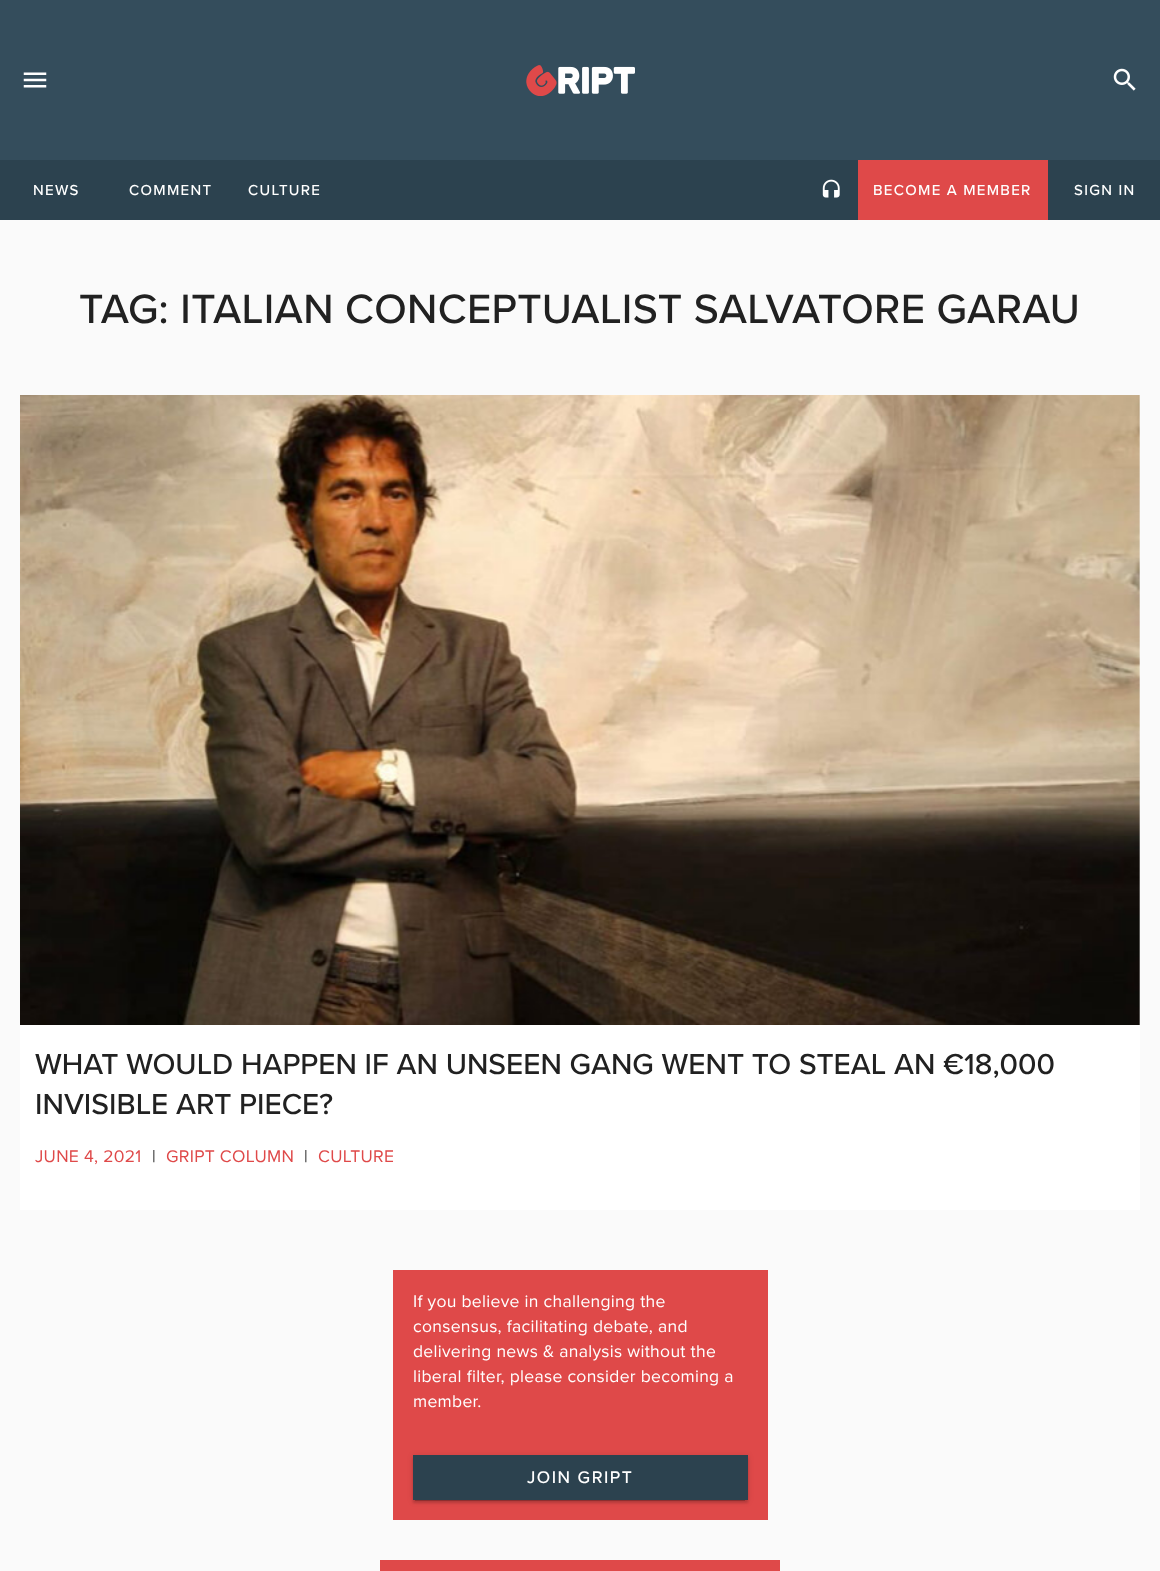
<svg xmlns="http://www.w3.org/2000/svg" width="1160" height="1571">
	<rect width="100%" height="100%" fill="#FAFAFA" />
	<rect x="0" y="0" width="1160" height="160" fill="#344D5C" />
	<image x="23" y="72" width="24" height="16" href="assets/img1.png" />
	<image x="526" y="65" width="109" height="31" href="assets/img2.png" />
	<image x="1113" y="68" width="23" height="23" href="assets/img3.png" />
	<rect x="0" y="160" width="1160" height="60" fill="#2C424F" />
	<g font-family="Proxima Nova" font-size="15" font-weight="500" letter-spacing="1.3" fill="#FFFFFF">
		<text x="33" y="195">NEWS</text>
		<text x="129" y="195">COMMENT</text>
		<text x="248" y="195">CULTURE</text>
	</g>
	<image x="822" y="179" width="18" height="19" href="assets/img4.png" />
	<rect x="858" y="160" width="190" height="60" fill="#DF4949" />
	<g font-family="Proxima Nova" font-size="15" font-weight="500" letter-spacing="1.3" fill="#FFFFFF">
		<text x="873" y="195">BECOME A MEMBER</text>
		<text x="1074" y="195">SIGN IN</text>
	</g>
	<text x="79" y="323" font-family="Proxima Nova" font-size="42.5" font-weight="500" letter-spacing="0.3" fill="#212121">TAG: ITALIAN CONCEPTUALIST SALVATORE GARAU</text>
	<rect x="20" y="395" width="1120" height="815" fill="#FFFFFF" />
	<image x="20" y="395" width="1120" height="630" href="assets/img5.png" />
	<g font-family="Proxima Nova" font-size="30" font-weight="500" fill="#212121">
		<text x="35" y="1074">WHAT WOULD HAPPEN IF AN UNSEEN GANG WENT TO STEAL AN €18,000</text>
		<text x="35" y="1114">INVISIBLE ART PIECE?</text>
	</g>
	<text x="35" y="1162" font-family="Proxima Nova" font-size="17.5" letter-spacing="0.3" fill="#DF4949">JUNE 4, 2021</text>
	<text x="152" y="1162" font-family="Proxima Nova" font-size="17.5" letter-spacing="0.3" fill="#212121">|</text>
	<text x="166" y="1162" font-family="Proxima Nova" font-size="17.5" letter-spacing="0.3" fill="#DF4949">GRIPT COLUMN</text>
	<text x="304" y="1162" font-family="Proxima Nova" font-size="17.5" letter-spacing="0.3" fill="#212121">|</text>
	<text x="318" y="1162" font-family="Proxima Nova" font-size="17.5" letter-spacing="0.3" fill="#DF4949">CULTURE</text>
	<rect x="393" y="1270" width="375" height="250" fill="#DF4949" />
	<g font-family="Proxima Nova" font-size="17.5" letter-spacing="0.3" fill="#FFFFFF">
		<text x="413" y="1307">If you believe in challenging the</text>
		<text x="413" y="1332">consensus, facilitating debate, and</text>
		<text x="413" y="1357">delivering news &amp; analysis without the</text>
		<text x="413" y="1382">liberal filter, please consider becoming a</text>
		<text x="413" y="1407">member.</text>
	</g>
	<rect x="413" y="1456" width="335" height="45" fill="#000000" fill-opacity="0.12" filter="blur(3px)" />
	<rect x="413" y="1458" width="335" height="45" fill="#000000" fill-opacity="0.14" filter="blur(1px)" />
	<rect x="415" y="1461" width="330" height="40" fill="#000000" fill-opacity="0.2" filter="blur(0.5px)" />
	<rect x="413" y="1455" width="335" height="45" fill="#2C424F" />
	<text x="527" y="1483" font-family="Proxima Nova" font-size="17.5" font-weight="500" letter-spacing="1.5" fill="#FFFFFF">JOIN GRIPT</text>
	<rect x="380" y="1560" width="400" height="11" fill="#DF4949" />
</svg>
